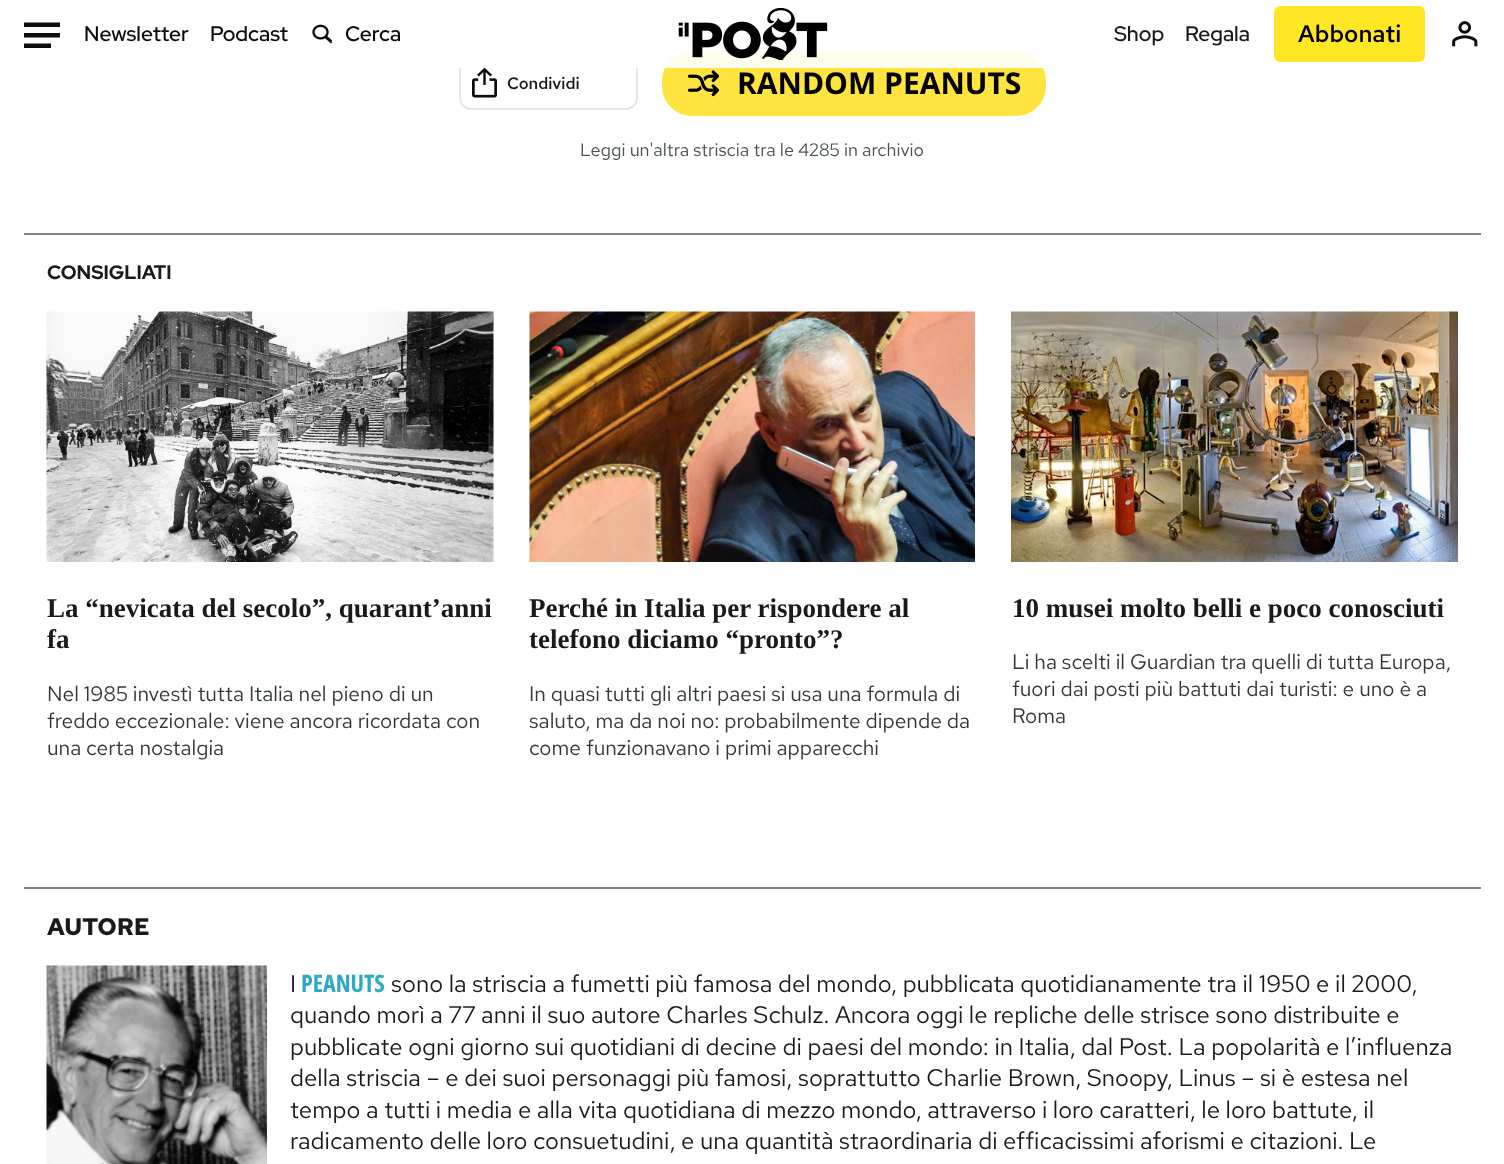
<svg xmlns="http://www.w3.org/2000/svg" width="1504" height="1164">
	<rect width="100%" height="100%" fill="#FFFFFF" />
	<rect x="460" y="58" width="177" height="51" rx="11" fill="none" stroke="#E3E7E7" stroke-width="2" />
	<rect x="662" y="51" width="384" height="65" rx="30" fill="#FFE33F" />
	<rect x="459" y="51" width="584" height="17" fill="#FFFFFF" fill-opacity="0.9" />
	<path d="M60 33V37.5H24V33ZM51 43.5V48H24V43.5ZM60 22.5V27H24V22.5Z" fill="#0C0D0E" />
	<g font-family="Red Hat Display" font-size="21" font-weight="600" fill="#0C0D0E">
		<text x="84" y="41">Newsletter</text>
		<text x="210" y="41">Podcast</text>
	</g>
	<image x="312" y="24" width="21" height="20" href="assets/img1.png" />
	<text x="345" y="41" font-family="Red Hat Display" font-size="21" font-weight="600" fill="#0C0D0E">Cerca</text>
	<image x="678" y="8" width="150" height="52" href="assets/img2.png" />
	<g font-family="Red Hat Display" font-size="21" font-weight="600" fill="#191B1B">
		<text x="1114" y="41">Shop</text>
		<text x="1185" y="41">Regala</text>
	</g>
	<rect x="1274" y="6" width="151" height="56" rx="6" fill="#FFE726" />
	<text x="1298" y="42" font-family="Red Hat Text" font-size="24" font-weight="600" fill="#000000">Abbonati</text>
	<image x="1452" y="21" width="26" height="26" href="assets/img3.png" />
	<image x="472" y="68" width="25" height="30" href="assets/img4.png" />
	<text x="507" y="89" font-family="Red Hat Text" font-size="16.5" font-weight="600" fill="#191B1B">Condividi</text>
	<image x="687" y="70" width="33" height="27" href="assets/img5.png" />
	<text x="737" y="94" font-family="Open Sans" font-size="30" font-weight="700" fill="#000000">RANDOM PEANUTS</text>
	<text x="580" y="156" font-family="Red Hat Text" font-size="18" fill="#4B5254">Leggi un'altra striscia tra le 4285 in archivio</text>
	<rect x="24" y="233" width="1457" height="2" fill="#7A888B" />
	<text x="47" y="279" font-family="Red Hat Display" font-size="19.5" font-weight="700" fill="#191B1B">CONSIGLIATI</text>
	<image x="46" y="311" width="448" height="251" href="assets/img6.png" />
	<g font-family="Liberation Serif" font-size="27" font-weight="700" fill="#191B1B">
		<text x="47" y="617">La “nevicata del secolo”, quarant’anni</text>
		<text x="47" y="648">fa</text>
	</g>
	<g font-family="Red Hat Text" font-size="21" fill="#323839">
		<text x="47" y="701">Nel 1985 investì tutta Italia nel pieno di un</text>
		<text x="47" y="728">freddo eccezionale: viene ancora ricordata con</text>
		<text x="47" y="755">una certa nostalgia</text>
	</g>
	<image x="529" y="311" width="446" height="251" href="assets/img7.png" />
	<g font-family="Liberation Serif" font-size="27" font-weight="700" fill="#191B1B">
		<text x="529" y="617">Perché in Italia per rispondere al</text>
		<text x="529" y="648">telefono diciamo “pronto”?</text>
	</g>
	<g font-family="Red Hat Text" font-size="21" fill="#323839">
		<text x="529" y="701">In quasi tutti gli altri paesi si usa una formula di</text>
		<text x="529" y="728">saluto, ma da noi no: probabilmente dipende da</text>
		<text x="529" y="755">come funzionavano i primi apparecchi</text>
	</g>
	<image x="1011" y="311" width="447" height="251" href="assets/img8.png" />
	<text x="1012" y="617" font-family="Liberation Serif" font-size="27" font-weight="700" fill="#191B1B">10 musei molto belli e poco conosciuti</text>
	<g font-family="Red Hat Text" font-size="21" fill="#323839">
		<text x="1012" y="669">Li ha scelti il Guardian tra quelli di tutta Europa,</text>
		<text x="1012" y="696">fuori dai posti più battuti dai turisti: e uno è a</text>
		<text x="1012" y="723">Roma</text>
	</g>
	<rect x="24" y="887" width="1457" height="2" fill="#7A888B" />
	<text x="47" y="935" font-family="Red Hat Text" font-size="24" font-weight="700" fill="#191B1B">AUTORE</text>
	<image x="46" y="965" width="221" height="199" href="assets/img9.png" />
	<text x="290" y="992" font-family="Red Hat Text" font-size="24" fill="#191B1B">I</text>
	<text x="301" y="992" font-family="'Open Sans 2'" font-size="24" font-weight="700" fill="#2EA8C6">PEANUTS</text>
	<g font-family="Red Hat Text" font-size="24" fill="#191B1B">
		<text x="391" y="992">sono la striscia a fumetti più famosa del mondo, pubblicata quotidianamente tra il 1950 e il 2000,</text>
		<text x="290" y="1023">quando morì a 77 anni il suo autore Charles Schulz. Ancora oggi le repliche delle strisce sono distribuite e</text>
		<text x="290" y="1055">pubblicate ogni giorno sui quotidiani di decine di paesi del mondo: in Italia, dal Post. La popolarità e l’influenza</text>
		<text x="290" y="1086">della striscia – e dei suoi personaggi più famosi, soprattutto Charlie Brown, Snoopy, Linus – si è estesa nel</text>
		<text x="290" y="1118">tempo a tutti i media e alla vita quotidiana di mezzo mondo, attraverso i loro caratteri, le loro battute, il</text>
		<text x="290" y="1149">radicamento delle loro consuetudini, e una quantità straordinaria di efficacissimi aforismi e citazioni. Le</text>
	</g>
</svg>
